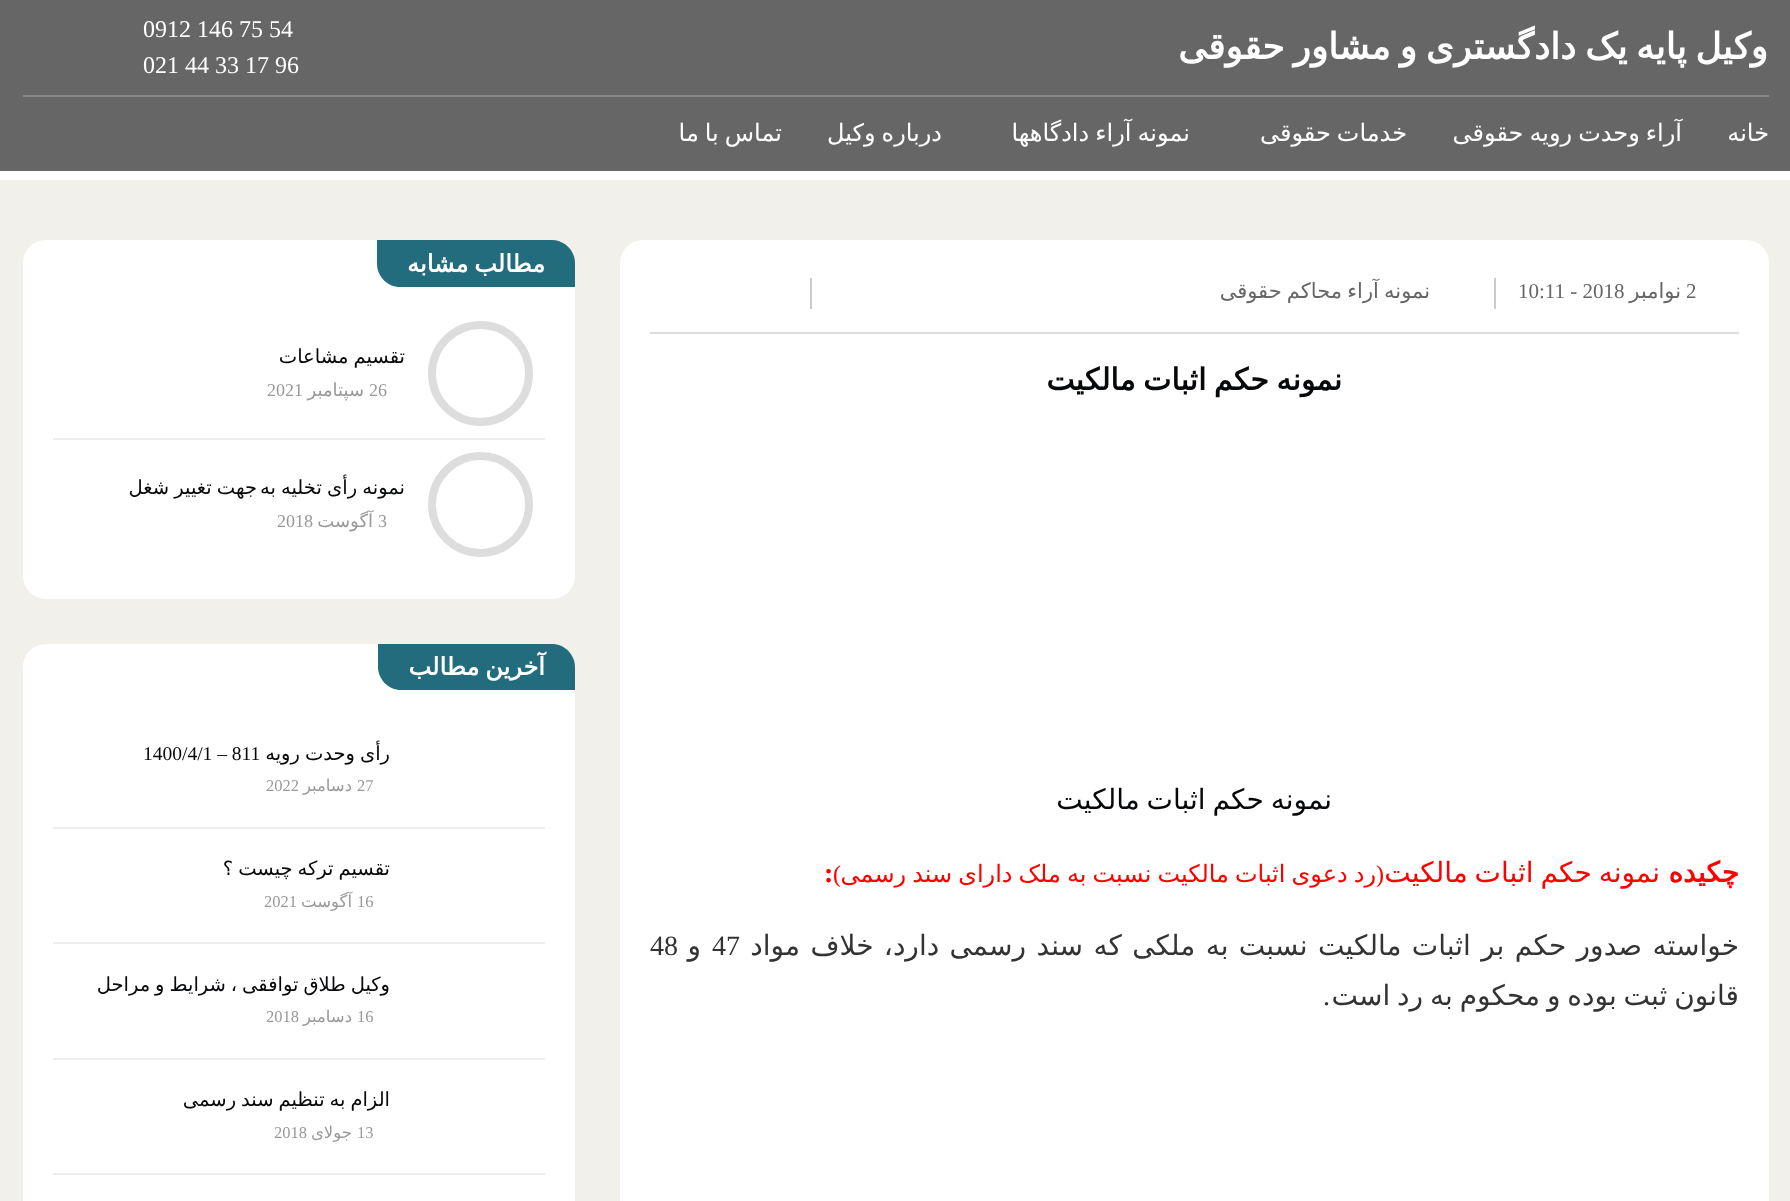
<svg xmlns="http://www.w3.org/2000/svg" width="1790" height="1201">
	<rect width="100%" height="100%" fill="#FFFFFF" />
	<rect x="0" y="0" width="1790" height="171" fill="#666666" />
	<text x="1768" y="59" word-spacing="-2.5" font-family="DejaVu Sans" font-size="36" font-weight="700" direction="rtl" fill="#FFFFFF">وکیل پایه یک دادگستری و مشاور حقوقی</text>
	<g font-family="Liberation Serif" font-size="24" fill="#FFFFFF">
		<text x="143" y="37">0912 146 75 54</text>
		<text x="143" y="73">021 44 33 17 96</text>
	</g>
	<rect x="23" y="95" width="1746" height="2" fill="#888888" />
	<g font-family="DejaVu Sans" font-size="24" direction="rtl" fill="#FFFFFF">
		<text x="1769" y="141">خانه</text>
		<text x="1682" y="141" word-spacing="-1.6">آراء وحدت رویه حقوقی</text>
		<text x="1407" y="141" word-spacing="-1.6">خدمات حقوقی</text>
		<text x="1190" y="141" word-spacing="-1.6">نمونه آراء دادگاهها</text>
		<text x="942" y="141" word-spacing="-1.6">درباره وکیل</text>
		<text x="782" y="141" word-spacing="-1.6">تماس با ما</text>
	</g>
	<rect x="0" y="180" width="1790" height="1021" fill="#F1F0EB" />
	<rect x="620" y="240" width="1149" height="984" rx="23" fill="#FFFFFF" />
	<rect x="650" y="332" width="1089" height="2" fill="#DDDDDD" />
	<rect x="1494" y="278" width="2" height="31" fill="#CCCCCC" />
	<text x="1686" y="298" font-family="Liberation Serif" font-size="21" fill="#666666">2</text>
	<text x="1681" y="298" font-family="DejaVu Sans" font-size="21" direction="rtl" fill="#666666">نوامبر</text>
	<text x="1518" y="298" font-family="Liberation Serif" font-size="21" fill="#666666">10:11 - 2018</text>
	<text x="1430" y="298" word-spacing="-1.5" font-family="DejaVu Sans" font-size="21" direction="rtl" fill="#666666">نمونه آراء محاکم حقوقی</text>
	<rect x="810" y="278" width="2" height="31" fill="#CCCCCC" />
	<text x="1342" y="390" word-spacing="-2" font-family="DejaVu Sans" font-size="30" font-weight="700" direction="rtl" fill="#07080A">نمونه حکم اثبات مالکیت</text>
	<text x="1332" y="809" word-spacing="-2" font-family="DejaVu Sans" font-size="28" direction="rtl" fill="#07080A">نمونه حکم اثبات مالکیت</text>
	<text x="1739" y="882" font-family="DejaVu Sans" font-size="28" font-weight="700" direction="rtl" fill="#FF0000">چکیده</text>
	<text x="1660" y="882" word-spacing="-2" font-family="DejaVu Sans" font-size="28" direction="rtl" fill="#FF0000">نمونه حکم اثبات مالکیت</text>
	<text x="1376" y="882" word-spacing="-1.6" font-family="DejaVu Sans" font-size="24" direction="rtl" fill="#FF0000">رد دعوی اثبات مالکیت نسبت به ملک دارای سند رسمی</text>
	<g font-family="Liberation Serif" font-size="24" direction="rtl" fill="#FF0000">
		<text x="841" y="882">)</text>
		<text x="1384" y="882">(</text>
	</g>
	<text x="824" y="882" font-family="Liberation Serif" font-size="28" font-weight="700" fill="#FF0000">:</text>
	<text x="1739" y="955" word-spacing="1.5" font-family="DejaVu Sans" font-size="28" direction="rtl" fill="#333333">خواسته صدور حکم بر اثبات مالکیت نسبت به ملکی که سند رسمی دارد، خلاف مواد</text>
	<text x="712" y="955" font-family="Liberation Serif" font-size="28" fill="#333333">47</text>
	<text x="701" y="955" font-family="DejaVu Sans" font-size="28" direction="rtl" fill="#333333">و</text>
	<text x="650" y="955" font-family="Liberation Serif" font-size="28" fill="#333333">48</text>
	<text x="1739" y="1005" word-spacing="-2" font-family="DejaVu Sans" font-size="28" direction="rtl" fill="#333333">قانون ثبت بوده و محکوم به رد است</text>
	<text x="1330" y="1005" font-family="Liberation Serif" font-size="28" direction="rtl" fill="#333333">.</text>
	<rect x="23" y="240" width="552" height="359" rx="23" fill="#FFFFFF" />
	<path d="M377 240H552C564.5 240 575 250.5 575 263V287H400C387.5 287 377 276.5 377 264Z" fill="#236C7D" />
	<text x="545" y="272" word-spacing="-1.6" font-family="DejaVu Sans" font-size="24" font-weight="700" direction="rtl" fill="#FFFFFF">مطالب مشابه</text>
	<rect x="53" y="438" width="492" height="2" fill="#EEEEEE" />
	<circle cx="480.5" cy="373.5" r="48.5" fill="none" stroke="#DDDDDD" stroke-width="8" />
	<text x="405" y="363" word-spacing="-1.25" font-family="DejaVu Sans" font-size="19.5" direction="rtl" fill="#07080A">تقسیم مشاعات</text>
	<text x="369" y="396" font-family="Liberation Serif" font-size="18" fill="#999999">26</text>
	<text x="364" y="396" font-family="DejaVu Sans" font-size="18" direction="rtl" fill="#999999">سپتامبر</text>
	<text x="267" y="396" font-family="Liberation Serif" font-size="18" fill="#999999">2021</text>
	<circle cx="480.5" cy="504.5" r="48.5" fill="none" stroke="#DDDDDD" stroke-width="8" />
	<g font-family="DejaVu Sans" font-size="19.5" direction="rtl" fill="#07080A">
		<text x="405" y="494" word-spacing="-1">نمونه رأی تخلیه به</text>
		<text x="257" y="494" word-spacing="-1">جهت تغییر شغل</text>
	</g>
	<text x="378" y="527" font-family="Liberation Serif" font-size="18" fill="#999999">3</text>
	<text x="373" y="527" font-family="DejaVu Sans" font-size="18" direction="rtl" fill="#999999">آگوست</text>
	<text x="277" y="527" font-family="Liberation Serif" font-size="18" fill="#999999">2018</text>
	<rect x="23" y="644" width="552" height="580" rx="23" fill="#FFFFFF" />
	<path d="M378 644H552C564.5 644 575 654.5 575 667V690H401C388.5 690 378 679.5 378 667Z" fill="#236C7D" />
	<text x="545" y="675" word-spacing="-1.6" font-family="DejaVu Sans" font-size="24" font-weight="700" direction="rtl" fill="#FFFFFF">آخرین مطالب</text>
	<rect x="53" y="827" width="492" height="2" fill="#EEEEEE" />
	<text x="390" y="760" word-spacing="-1.25" font-family="DejaVu Sans" font-size="19.5" direction="rtl" fill="#07080A">رأی وحدت رویه</text>
	<text x="143" y="760" font-family="Liberation Serif" font-size="19.5" fill="#07080A">1400/4/1 – 811</text>
	<text x="357" y="791" font-family="Liberation Serif" font-size="16.5" fill="#999999">27</text>
	<text x="352" y="791" font-family="DejaVu Sans" font-size="16.5" direction="rtl" fill="#999999">دسامبر</text>
	<text x="266" y="791" font-family="Liberation Serif" font-size="16.5" fill="#999999">2022</text>
	<rect x="53" y="942" width="492" height="2" fill="#EEEEEE" />
	<text x="390" y="875" word-spacing="-1.25" font-family="DejaVu Sans" font-size="19.5" direction="rtl" fill="#07080A">تقسیم ترکه چیست ؟</text>
	<text x="357" y="907" font-family="Liberation Serif" font-size="16.5" fill="#999999">16</text>
	<text x="352" y="907" font-family="DejaVu Sans" font-size="16.5" direction="rtl" fill="#999999">آگوست</text>
	<text x="264" y="907" font-family="Liberation Serif" font-size="16.5" fill="#999999">2021</text>
	<rect x="53" y="1058" width="492" height="2" fill="#EEEEEE" />
	<text x="390" y="991" word-spacing="-1.25" font-family="DejaVu Sans" font-size="19.5" direction="rtl" fill="#07080A">وکیل طلاق توافقی ، شرایط و مراحل</text>
	<text x="357" y="1022" font-family="Liberation Serif" font-size="16.5" fill="#999999">16</text>
	<text x="352" y="1022" font-family="DejaVu Sans" font-size="16.5" direction="rtl" fill="#999999">دسامبر</text>
	<text x="266" y="1022" font-family="Liberation Serif" font-size="16.5" fill="#999999">2018</text>
	<rect x="53" y="1173" width="492" height="2" fill="#EEEEEE" />
	<text x="390" y="1106" word-spacing="-1.25" font-family="DejaVu Sans" font-size="19.5" direction="rtl" fill="#07080A">الزام به تنظیم سند رسمی</text>
	<text x="357" y="1138" font-family="Liberation Serif" font-size="16.5" fill="#999999">13</text>
	<text x="352" y="1138" font-family="DejaVu Sans" font-size="16.5" direction="rtl" fill="#999999">جولای</text>
	<text x="274" y="1138" font-family="Liberation Serif" font-size="16.5" fill="#999999">2018</text>
</svg>
